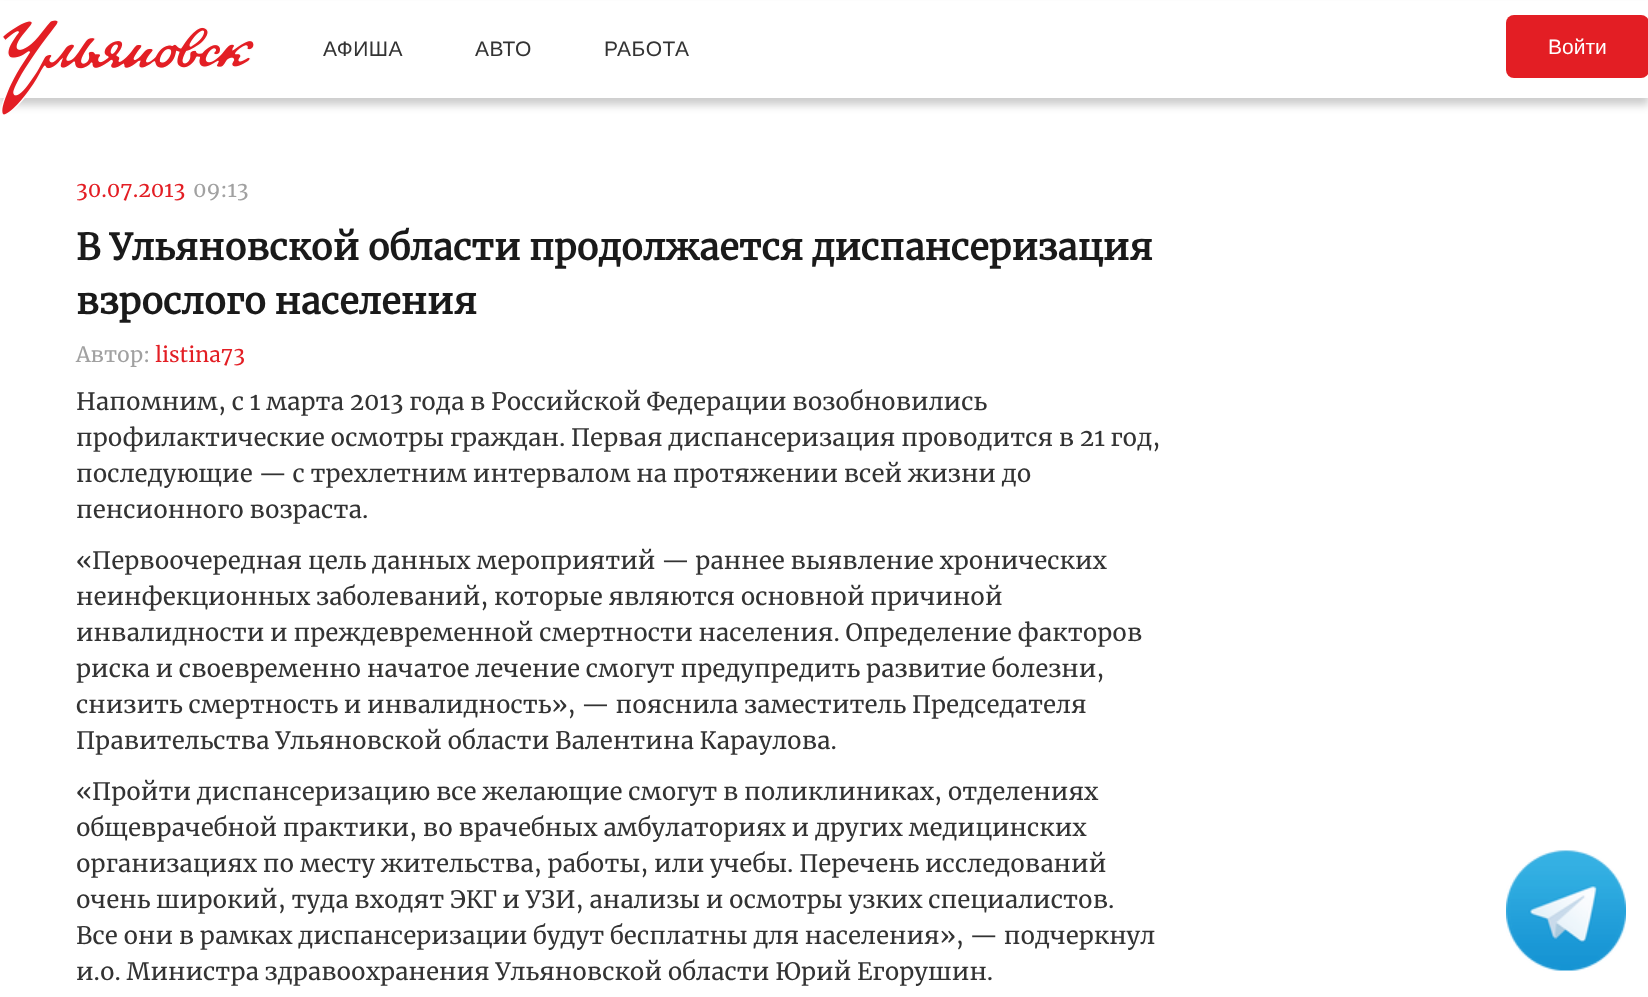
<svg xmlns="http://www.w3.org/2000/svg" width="1648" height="997">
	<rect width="100%" height="100%" fill="#FFFFFF" />
	<rect x="0" y="8" width="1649" height="97" fill="#000000" fill-opacity="0.2" filter="blur(4px)" />
	<rect x="0" y="1" width="1648" height="97" fill="#FFFFFF" />
	<image x="1" y="20" width="253" height="95" href="assets/img1.png" />
	<g font-family="Liberation Sans" font-size="21" letter-spacing="0.5" fill="#333333">
		<text x="323" y="56">АФИША</text>
		<text x="475" y="56">АВТО</text>
		<text x="604" y="56">РАБОТА</text>
	</g>
	<rect x="1506" y="15" width="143" height="63" rx="8" fill="#E31E24" />
	<text x="1548" y="54" font-family="Liberation Sans" font-size="21" fill="#FFFFFF">Войти</text>
	<text x="76" y="197" font-family="Merriweather" font-size="21" fill="#E31E24">30.07.2013</text>
	<text x="193" y="197" font-family="Merriweather" font-size="21" fill="#A1A1A1">09:13</text>
	<g font-family="Merriweather" font-size="36" font-weight="700" fill="#1A1A1A">
		<text x="76" y="260">В Ульяновской области продолжается диспансеризация</text>
		<text x="76" y="314">взрослого населения</text>
	</g>
	<text x="76" y="362" font-family="Merriweather" font-size="21" fill="#A1A1A1">Автор:</text>
	<text x="155" y="362" font-family="Merriweather" font-size="21" fill="#E31E24">listina73</text>
	<g font-family="Merriweather" font-size="24" fill="#333333">
		<text x="76" y="410">Напомним, c 1 марта 2013 года в Российской Федерации возобновились</text>
		<text x="76" y="446">профилактические осмотры граждан. Первая диспансеризация проводится в 21 год,</text>
		<text x="76" y="482">последующие — с трехлетним интервалом на протяжении всей жизни до</text>
		<text x="76" y="518">пенсионного возраста.</text>
		<text x="76" y="569">«Первоочередная цель данных мероприятий — раннее выявление хронических</text>
		<text x="76" y="605">неинфекционных заболеваний, которые являются основной причиной</text>
		<text x="76" y="641">инвалидности и преждевременной смертности населения. Определение факторов</text>
		<text x="76" y="677">риска и своевременно начатое лечение смогут предупредить развитие болезни,</text>
		<text x="76" y="713">снизить смертность и инвалидность», — пояснила заместитель Председателя</text>
		<text x="76" y="749">Правительства Ульяновской области Валентина Караулова.</text>
		<text x="76" y="800">«Пройти диспансеризацию все желающие смогут в поликлиниках, отделениях</text>
		<text x="76" y="836">общеврачебной практики, во врачебных амбулаториях и других медицинских</text>
		<text x="76" y="872">организациях по месту жительства, работы, или учебы. Перечень исследований</text>
		<text x="76" y="908">очень широкий, туда входят ЭКГ и УЗИ, анализы и осмотры узких специалистов.</text>
		<text x="76" y="944">Все они в рамках диспансеризации будут бесплатны для населения», — подчеркнул</text>
		<text x="76" y="980">и.о. Министра здравоохранения Ульяновской области Юрий Егорушин.</text>
	</g>
	<image x="1506" y="850" width="120" height="121" href="assets/img2.png" />
</svg>
